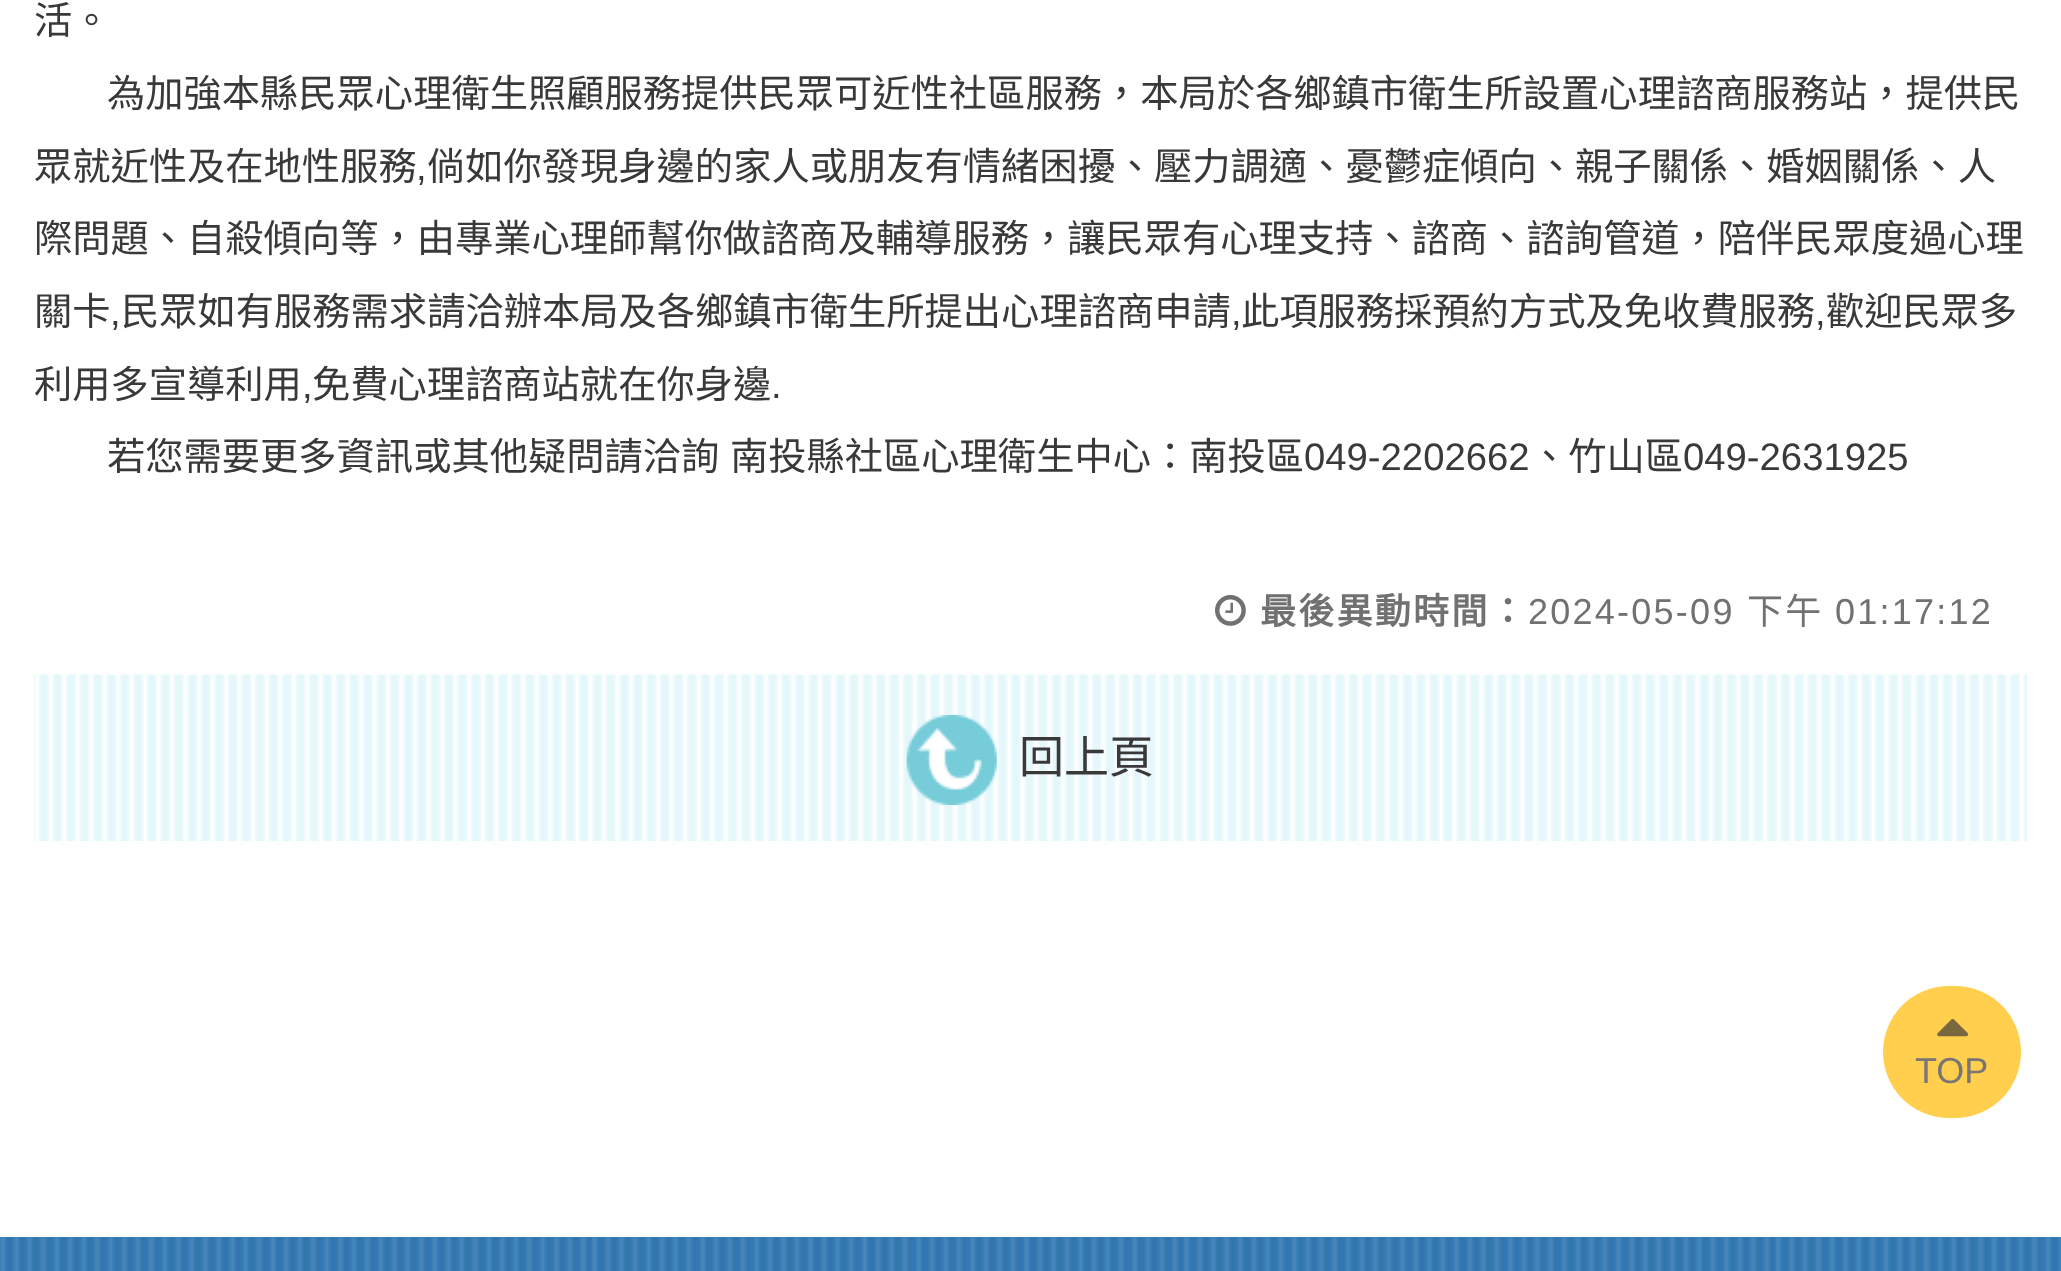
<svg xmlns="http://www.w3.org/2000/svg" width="2061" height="1271">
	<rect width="100%" height="100%" fill="#FFFFFF" />
	<g font-family="Noto Sans CJK TC" font-size="38.27" fill="#393939">
		<text x="34" y="34">活。</text>
		<text x="107" y="107">為加強本縣民眾心理衛生照顧服務提供民眾可近性社區服務，本局於各鄉鎮市衛生所設置心理諮商服務站，提供民</text>
		<text x="34" y="180">眾就近性及在地性服務</text>
	</g>
	<text x="416" y="180" font-family="Liberation Sans" font-size="38.27" fill="#393939">,</text>
	<g font-family="Noto Sans CJK TC" font-size="38.27" fill="#393939">
		<text x="427" y="180">倘如你發現身邊的家人或朋友有情緒困擾、壓力調適、憂鬱症傾向、親子關係、婚姻關係、人</text>
		<text x="34" y="252">際問題、自殺傾向等，由專業心理師幫你做諮商及輔導服務，讓民眾有心理支持、諮商、諮詢管道，陪伴民眾度過心理</text>
		<text x="34" y="325">關卡</text>
	</g>
	<text x="110" y="325" font-family="Liberation Sans" font-size="38.27" fill="#393939">,</text>
	<text x="121" y="325" font-family="Noto Sans CJK TC" font-size="38.27" fill="#393939">民眾如有服務需求請洽辦本局及各鄉鎮市衛生所提出心理諮商申請</text>
	<text x="1231" y="325" font-family="Liberation Sans" font-size="38.27" fill="#393939">,</text>
	<text x="1241" y="325" font-family="Noto Sans CJK TC" font-size="38.27" fill="#393939">此項服務採預約方式及免收費服務</text>
	<text x="1815" y="325" font-family="Liberation Sans" font-size="38.27" fill="#393939">,</text>
	<g font-family="Noto Sans CJK TC" font-size="38.27" fill="#393939">
		<text x="1826" y="325">歡迎民眾多</text>
		<text x="34" y="398">利用多宣導利用</text>
	</g>
	<text x="302" y="398" font-family="Liberation Sans" font-size="38.27" fill="#393939">,</text>
	<text x="312" y="398" font-family="Noto Sans CJK TC" font-size="38.27" fill="#393939">免費心理諮商站就在你身邊</text>
	<text x="771" y="398" font-family="Liberation Sans" font-size="38.27" fill="#393939">.</text>
	<g font-family="Noto Sans CJK TC" font-size="38.27" fill="#393939">
		<text x="107" y="470">若您需要更多資訊或其他疑問請洽詢</text>
		<text x="730" y="470">南投縣社區心理衛生中心：南投區</text>
	</g>
	<text x="1304" y="470" font-family="Liberation Sans" font-size="38.27" fill="#393939">049-2202662</text>
	<text x="1530" y="470" font-family="Noto Sans CJK TC" font-size="38.27" fill="#393939">、竹山區</text>
	<text x="1683" y="470" font-family="Liberation Sans" font-size="38.27" fill="#393939">049-2631925</text>
	<image x="1215" y="595" width="31" height="31" href="assets/img1.png" />
	<text x="1260" y="624" font-family="Noto Sans CJK TC" font-size="36" font-weight="700" letter-spacing="2.25" fill="#717171">最後異動時間：</text>
	<text x="1528" y="624" font-family="Liberation Sans" font-size="36" letter-spacing="2.25" fill="#717171">2024-05-09</text>
	<text x="1747" y="624" font-family="Noto Sans CJK TC" font-size="36" letter-spacing="2.25" fill="#717171">下午</text>
	<text x="1835" y="624" font-family="Liberation Sans" font-size="36" letter-spacing="2.25" fill="#717171">01:17:12</text>
	<image x="33" y="674" width="1995" height="167" href="assets/img2.png" />
	<image x="906" y="715" width="91" height="90" href="assets/img3.png" />
	<text x="1019" y="773" font-family="Noto Sans CJK TC" font-size="45" fill="#393939">回上頁</text>
	<rect x="1883" y="986" width="138" height="132" rx="66" fill="#FFCF4D" />
	<image x="1937" y="1019" width="32" height="18" href="assets/img4.png" />
	<text x="1915" y="1083" font-family="Liberation Sans" font-size="36" fill="#787574">TOP</text>
	<image x="0" y="1237" width="2061" height="34" href="assets/img5.png" />
</svg>
